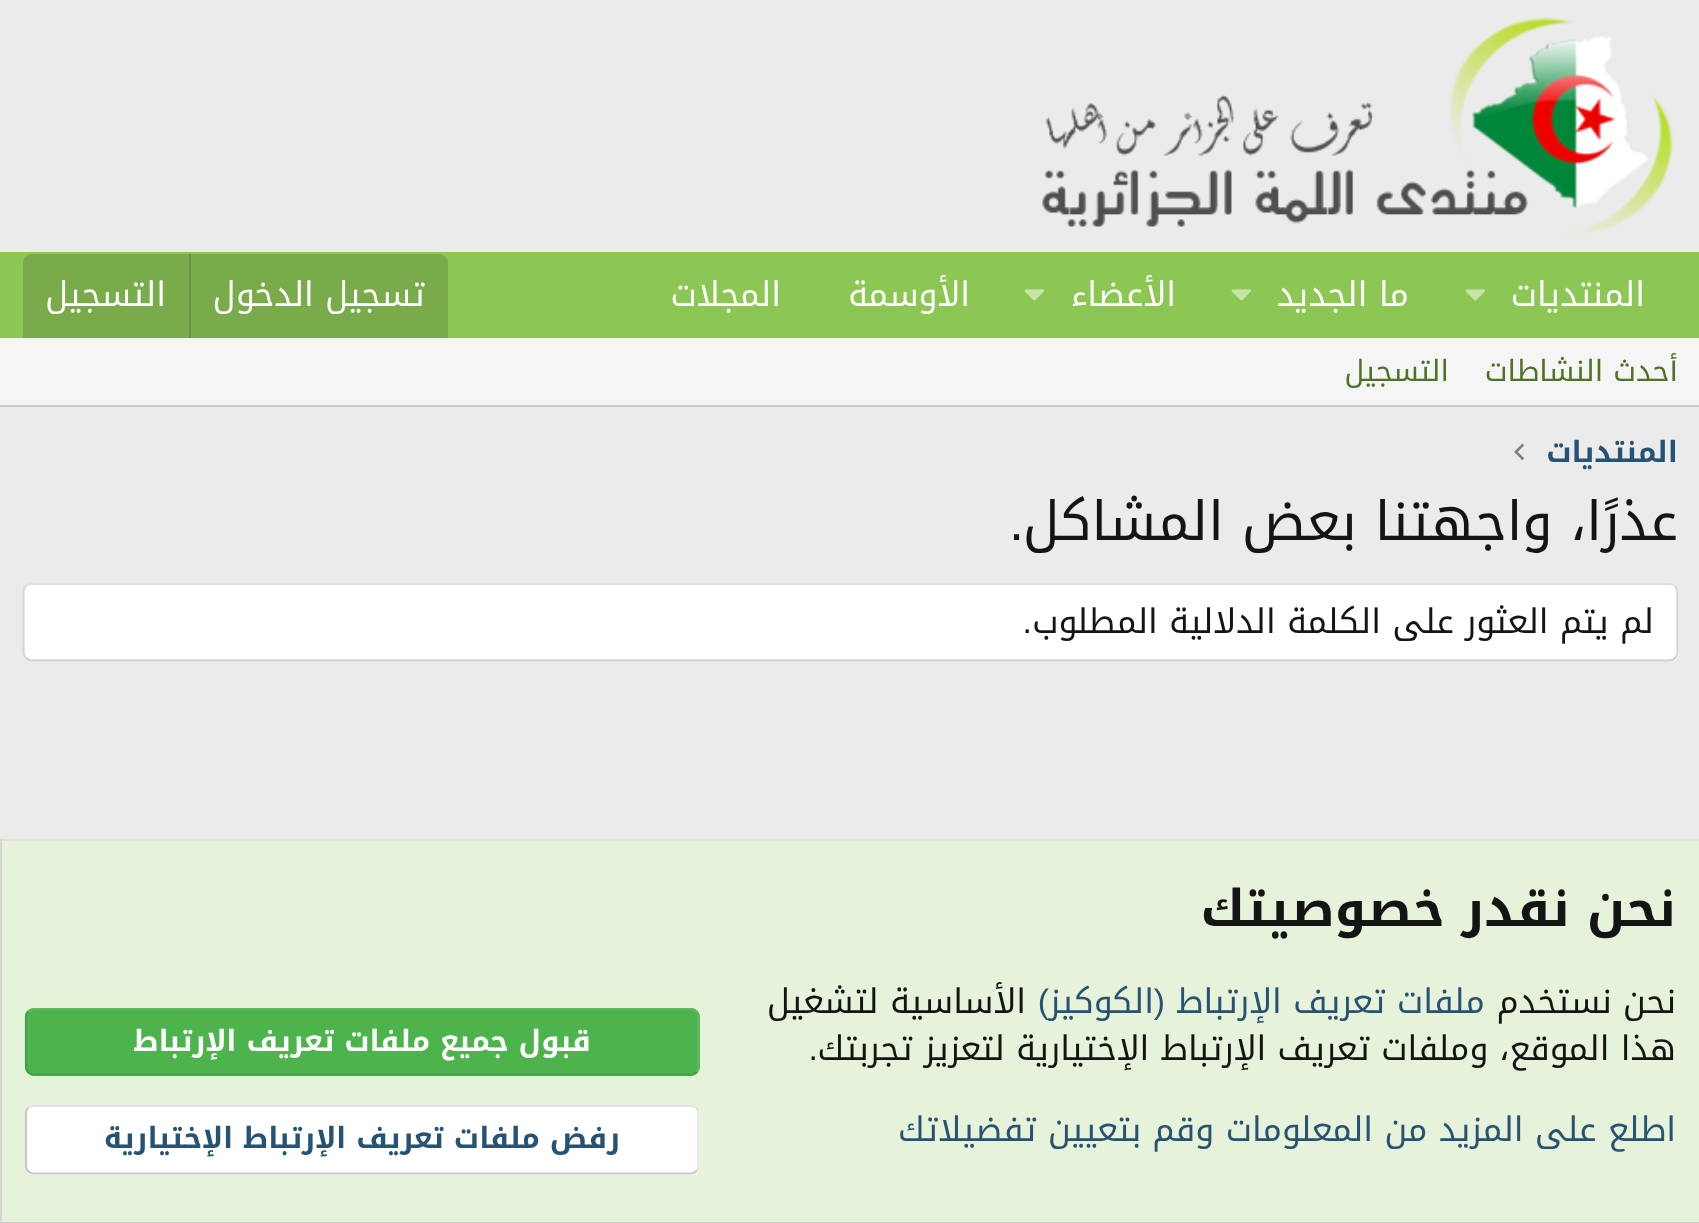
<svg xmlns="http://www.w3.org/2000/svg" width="1699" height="1223">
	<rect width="100%" height="100%" fill="#EBEBEB" />
	<image x="1042" y="17" width="632" height="218" href="assets/img1.png" />
	<rect x="0" y="252" width="1699" height="86" fill="#8CC653" />
	<text x="1645" y="306" font-family="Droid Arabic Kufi" font-size="33.75" direction="rtl" fill="#FFFFFF">المنتديات</text>
	<image x="1465" y="289" width="20" height="12" href="assets/img2.png" />
	<text x="1409" y="306" font-family="Droid Arabic Kufi" font-size="33.75" direction="rtl" fill="#FFFFFF">ما الجديد</text>
	<image x="1231" y="289" width="20" height="12" href="assets/img2.png" />
	<text x="1176" y="306" font-family="Droid Arabic Kufi" font-size="33.75" direction="rtl" fill="#FFFFFF">الأعضاء</text>
	<image x="1024" y="289" width="20" height="12" href="assets/img2.png" />
	<g font-family="Droid Arabic Kufi" font-size="33.75" direction="rtl" fill="#FFFFFF">
		<text x="970" y="306">الأوسمة</text>
		<text x="781" y="306">المجلات</text>
	</g>
	<path d="M32 254H439C444 254 448 258 448 263V338H23V263C23 258 27 254 32 254Z" fill="#7AAB4A" />
	<text x="425" y="306" font-family="Droid Arabic Kufi" font-size="33.75" direction="rtl" fill="#FFFFFF">تسجيل الدخول</text>
	<rect x="189" y="254" width="2" height="84" fill="#6B9442" />
	<text x="166" y="306" font-family="Droid Arabic Kufi" font-size="33.75" direction="rtl" fill="#FFFFFF">التسجيل</text>
	<rect x="0" y="338" width="1699" height="67" fill="#F5F5F5" />
	<rect x="0" y="405" width="1699" height="2" fill="#CCCCCC" />
	<g font-family="Droid Arabic Kufi" font-size="29.25" direction="rtl" fill="#4D7326">
		<text x="1678" y="381">أحدث النشاطات</text>
		<text x="1449" y="381">التسجيل</text>
	</g>
	<text x="1678" y="462" font-family="Droid Arabic Kufi" font-size="29.25" font-weight="700" direction="rtl" fill="#265373">المنتديات</text>
	<image x="1514" y="443" width="10" height="17" href="assets/img3.png" />
	<text x="1678" y="540" font-family="Droid Arabic Kufi" font-size="54" direction="rtl" fill="#141414">عذرًا، واجهتنا بعض المشاكل</text>
	<text x="1024" y="540" font-family="Liberation Sans" font-size="54" direction="rtl" fill="#141414">.</text>
	<rect x="23" y="583" width="1656" height="79" rx="9" fill="#FFFFFF" />
	<path d="M26 586C27.5 584.5 29.5 584 31.5 584H1669.5C1671.5 584 1673.5 584.5 1675 586" fill="none" stroke="#E0E0E0" stroke-width="2.2" />
	<path d="M1675 586C1676.5 587.5 1677.5 589.5 1677.5 592V652.5C1677.5 654.5 1676.5 656.5 1675 658" fill="none" stroke="#D6D6D6" stroke-width="2.2" />
	<path d="M1675 658C1673.5 659.5 1671.5 660.5 1669.5 660.5H31.5C29.5 660.5 27.5 659.5 26 658" fill="none" stroke="#CCCCCC" stroke-width="2.2" />
	<path d="M26 658C24.5 656.5 23.5 654.5 23.5 652.5V592C23.5 589.5 24.5 587.5 26 586" fill="none" stroke="#D6D6D6" stroke-width="2.2" />
	<text x="1654" y="633" font-family="Droid Arabic Kufi" font-size="33.75" direction="rtl" fill="#141414">لم يتم العثور على الكلمة الدلالية المطلوب</text>
	<text x="1032" y="633" font-family="Liberation Sans" font-size="33.75" direction="rtl" fill="#141414">.</text>
	<rect x="2" y="841" width="1697" height="381" fill="#E6F2D9" />
	<rect x="0" y="839" width="1699" height="2" fill="#E0E0E0" />
	<rect x="0" y="1222" width="1699" height="1" fill="#CCCCCC" />
	<rect x="0" y="839" width="2" height="384" fill="#D6D6D6" />
	<text x="1676" y="926" font-family="Droid Arabic Kufi" font-size="50.6" font-weight="700" direction="rtl" fill="#141414">نحن نقدر خصوصيتك</text>
	<text x="1676" y="1013" font-family="Droid Arabic Kufi" font-size="33.75" direction="rtl" fill="#141414">نحن نستخدم</text>
	<text x="1485" y="1013" font-family="Droid Arabic Kufi" font-size="33.75" direction="rtl" fill="#265373">ملفات تعريف الإرتباط</text>
	<g font-family="Liberation Sans" font-size="33.75" direction="rtl" fill="#265373">
		<text x="1165" y="1013">(</text>
		<text x="1049" y="1013">)</text>
	</g>
	<text x="1154" y="1013" font-family="Droid Arabic Kufi" font-size="33.75" direction="rtl" fill="#265373">الكوكيز</text>
	<g font-family="Droid Arabic Kufi" font-size="33.75" direction="rtl" fill="#141414">
		<text x="1026" y="1013">الأساسية لتشغيل</text>
		<text x="1676" y="1060">هذا الموقع، وملفات تعريف الإرتباط الإختيارية لتعزيز تجربتك</text>
	</g>
	<text x="818" y="1060" font-family="Liberation Sans" font-size="33.75" direction="rtl" fill="#141414">.</text>
	<text x="1676" y="1141" font-family="Droid Arabic Kufi" font-size="33.75" direction="rtl" fill="#265373">اطلع على المزيد من المعلومات وقم بتعيين تفضيلاتك</text>
	<rect x="25" y="1008" width="675" height="68" rx="9" fill="#4DB34D" />
	<path d="M28 1011.5C29.5 1010 31.5 1009 34 1009H691C693 1009 695 1010 696.5 1011.5C698 1013 698.5 1015 698.5 1017V1066.5C698.5 1068.5 698 1070.5 696.5 1072" fill="none" stroke="#5EBA5E" stroke-width="2.2" />
	<path d="M696.5 1072C695 1073.5 693 1074.5 691 1074.5H34C31.5 1074.5 29.5 1073.5 28 1072C26.5 1070.5 26 1068.5 26 1066.5V1017C26 1015 26.5 1013 28 1011.5" fill="none" stroke="#45A145" stroke-width="2.2" />
	<text x="591" y="1051" font-family="Droid Arabic Kufi" font-size="29.25" font-weight="700" direction="rtl" fill="#FFFFFF">قبول جميع ملفات تعريف الإرتباط</text>
	<rect x="25" y="1105" width="675" height="70" rx="9" fill="#FFFFFF" />
	<path d="M28 1108C29.5 1106.5 31.5 1106 34 1106H691C693 1106 695 1106.5 696.5 1108C698 1109.5 698.5 1111.5 698.5 1114V1165.5C698.5 1167.5 698 1169.5 696.5 1171" fill="none" stroke="#E3E3E3" stroke-width="2.2" />
	<path d="M696.5 1171C695 1172.5 693 1173.5 691 1173.5H34C31.5 1173.5 29.5 1172.5 28 1171C26.5 1169.5 26 1167.5 26 1165.5V1114C26 1111.5 26.5 1109.5 28 1108" fill="none" stroke="#C9C9C9" stroke-width="2.2" />
	<text x="620" y="1148" font-family="Droid Arabic Kufi" font-size="29.25" font-weight="700" direction="rtl" fill="#265373">رفض ملفات تعريف الإرتباط الإختيارية</text>
</svg>
